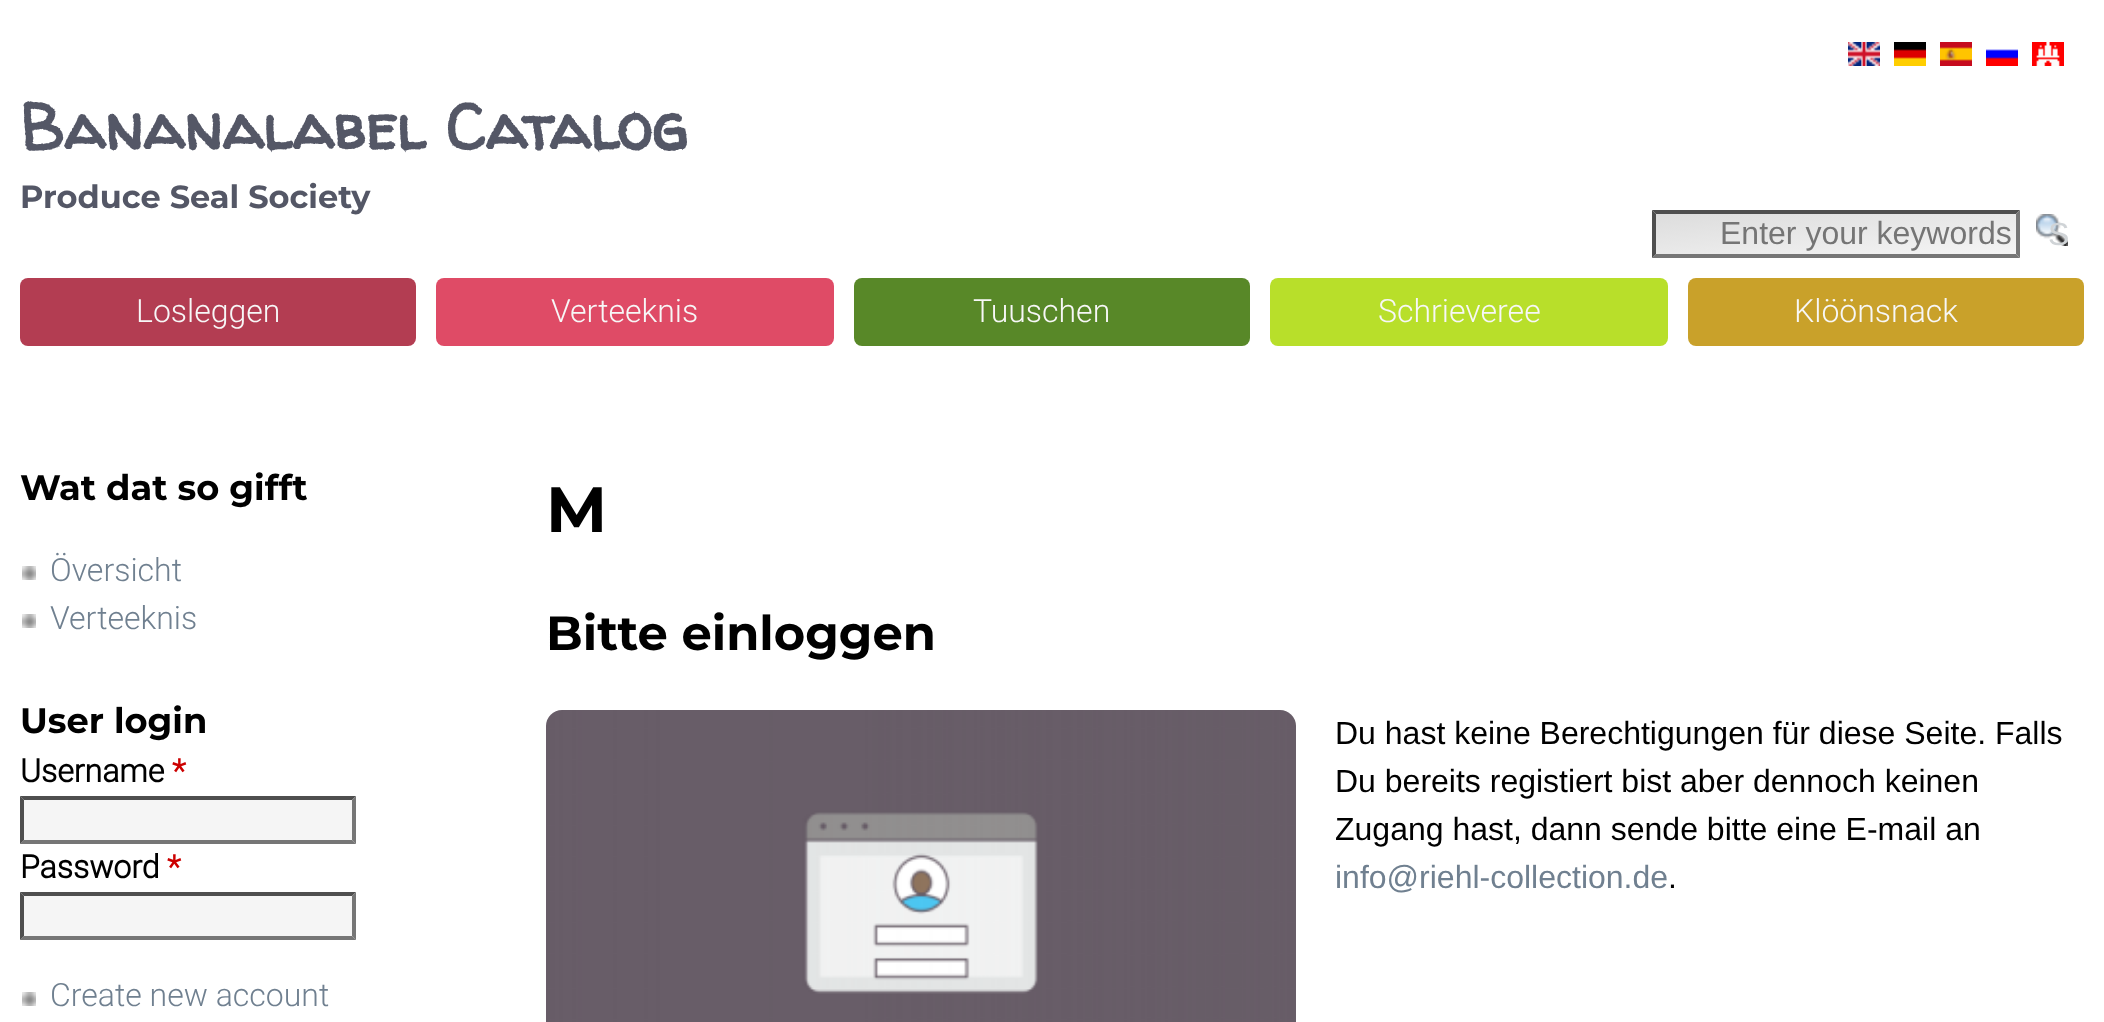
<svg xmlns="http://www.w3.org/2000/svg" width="2104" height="1022">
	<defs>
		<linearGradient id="g1" gradientUnits="userSpaceOnUse" x1="1832" y1="194" x2="1840" y2="274"><stop offset="0" stop-color="#DCDCDC" /><stop offset="1" stop-color="#F5F5F5" /></linearGradient>
	</defs>
	<rect width="100%" height="100%" fill="#FFFFFF" />
	<image x="1848" y="42" width="32" height="24" href="assets/img1.png" />
	<image x="1894" y="42" width="32" height="24" href="assets/img2.png" />
	<image x="1940" y="42" width="32" height="24" href="assets/img3.png" />
	<image x="1986" y="49" width="32" height="17" href="assets/img4.png" />
	<image x="2032" y="42" width="32" height="24" href="assets/img5.png" />
	<text x="20" y="150" font-family="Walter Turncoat" font-size="64" font-weight="700" fill="#545766">Bananalabel Catalog</text>
	<text x="20" y="208" font-family="Montserrat" font-size="32" font-weight="100" fill="#545766">Produce Seal Society</text>
	<rect x="1656" y="214" width="360" height="40" fill="url(#g1)" />
	<path d="M1652 210H2020L2016 214H1656Z" fill="#4F4F4F" />
	<path d="M2020 210V258L2016 254V214Z" fill="#767676" />
	<path d="M2020 258H1652L1656 254H2016Z" fill="#767676" />
	<path d="M1652 258V210L1656 214V254Z" fill="#4F4F4F" />
	<text x="1720" y="244" font-family="Liberation Sans" font-size="32" fill="#757575">Enter your keywords</text>
	<image x="2036" y="214" width="32" height="32" href="assets/img6.png" />
	<text x="2048" y="245" font-family="Liberation Sans" font-size="32" fill="#D0D4D7">S</text>
	<rect x="20" y="278" width="396" height="68" rx="8" fill="#B33D52" />
	<text x="136" y="322" font-family="Roboto" font-size="32" font-weight="300" fill="#F7F7F7">Losleggen</text>
	<rect x="436" y="278" width="398" height="68" rx="8" fill="#DF4B66" />
	<text x="551" y="322" font-family="Roboto" font-size="32" font-weight="300" fill="#F7F7F7">Verteeknis</text>
	<rect x="854" y="278" width="396" height="68" rx="8" fill="#588828" />
	<text x="973" y="322" font-family="Roboto" font-size="32" font-weight="300" fill="#F7F7F7">Tuuschen</text>
	<rect x="1270" y="278" width="398" height="68" rx="8" fill="#B8DF2A" />
	<text x="1378" y="322" font-family="Roboto" font-size="32" font-weight="300" fill="#F7F7F7">Schrieveree</text>
	<rect x="1688" y="278" width="396" height="68" rx="8" fill="#C9A12A" />
	<text x="1794" y="322" font-family="Roboto" font-size="32" font-weight="300" fill="#F7F7F7">Klöönsnack</text>
	<text x="20" y="500" font-family="Montserrat" font-size="35.25" font-weight="100" fill="#000000">Wat dat so gifft</text>
	<image x="22" y="566" width="14" height="14" href="assets/img7.png" />
	<text x="50" y="581" font-family="Roboto" font-size="32" font-weight="300" fill="#708090">Översicht</text>
	<image x="22" y="614" width="14" height="14" href="assets/img7.png" />
	<text x="50" y="629" font-family="Roboto" font-size="32" font-weight="300" fill="#708090">Verteeknis</text>
	<text x="20" y="733" font-family="Montserrat" font-size="35.25" font-weight="100" fill="#000000">User login</text>
	<text x="20" y="782" font-family="Roboto" font-size="32" font-weight="700" fill="#000000">Username</text>
	<text x="172" y="782" font-family="Roboto" font-size="32" font-weight="700" fill="#CC0000">*</text>
	<rect x="20" y="796" width="336" height="48" fill="#F5F5F5" />
	<path d="M20 796H356L352 800H24Z" fill="#4F4F4F" />
	<path d="M356 796V844L352 840V800Z" fill="#767676" />
	<path d="M356 844H20L24 840H352Z" fill="#767676" />
	<path d="M20 844V796L24 800V840Z" fill="#4F4F4F" />
	<text x="20" y="878" font-family="Roboto" font-size="32" font-weight="700" fill="#000000">Password</text>
	<text x="167" y="878" font-family="Roboto" font-size="32" font-weight="700" fill="#CC0000">*</text>
	<rect x="20" y="892" width="336" height="48" fill="#F5F5F5" />
	<path d="M20 892H356L352 896H24Z" fill="#4F4F4F" />
	<path d="M356 892V940L352 936V896Z" fill="#767676" />
	<path d="M356 940H20L24 936H352Z" fill="#767676" />
	<path d="M20 940V892L24 896V936Z" fill="#4F4F4F" />
	<image x="22" y="992" width="14" height="14" href="assets/img7.png" />
	<text x="50" y="1006" font-family="Roboto" font-size="32" font-weight="300" fill="#708090">Create new account</text>
	<text x="546" y="532" font-family="Montserrat" font-size="64" font-weight="100" fill="#000000">M</text>
	<text x="546" y="650" font-family="Montserrat" font-size="48" font-weight="100" fill="#000000">Bitte einloggen</text>
	<image x="546" y="710" width="750" height="312" href="assets/img8.png" />
	<g font-family="Liberation Sans" font-size="32" fill="#000000">
		<text x="1335" y="744">Du hast keine Berechtigungen für diese Seite. Falls</text>
		<text x="1335" y="792">Du bereits registiert bist aber dennoch keinen</text>
		<text x="1335" y="840">Zugang hast, dann sende bitte eine E-mail an</text>
	</g>
	<text x="1335" y="888" font-family="Liberation Sans" font-size="32" fill="#708090">info@riehl-collection.de</text>
	<text x="1668" y="888" font-family="Liberation Sans" font-size="32" fill="#000000">.</text>
</svg>
